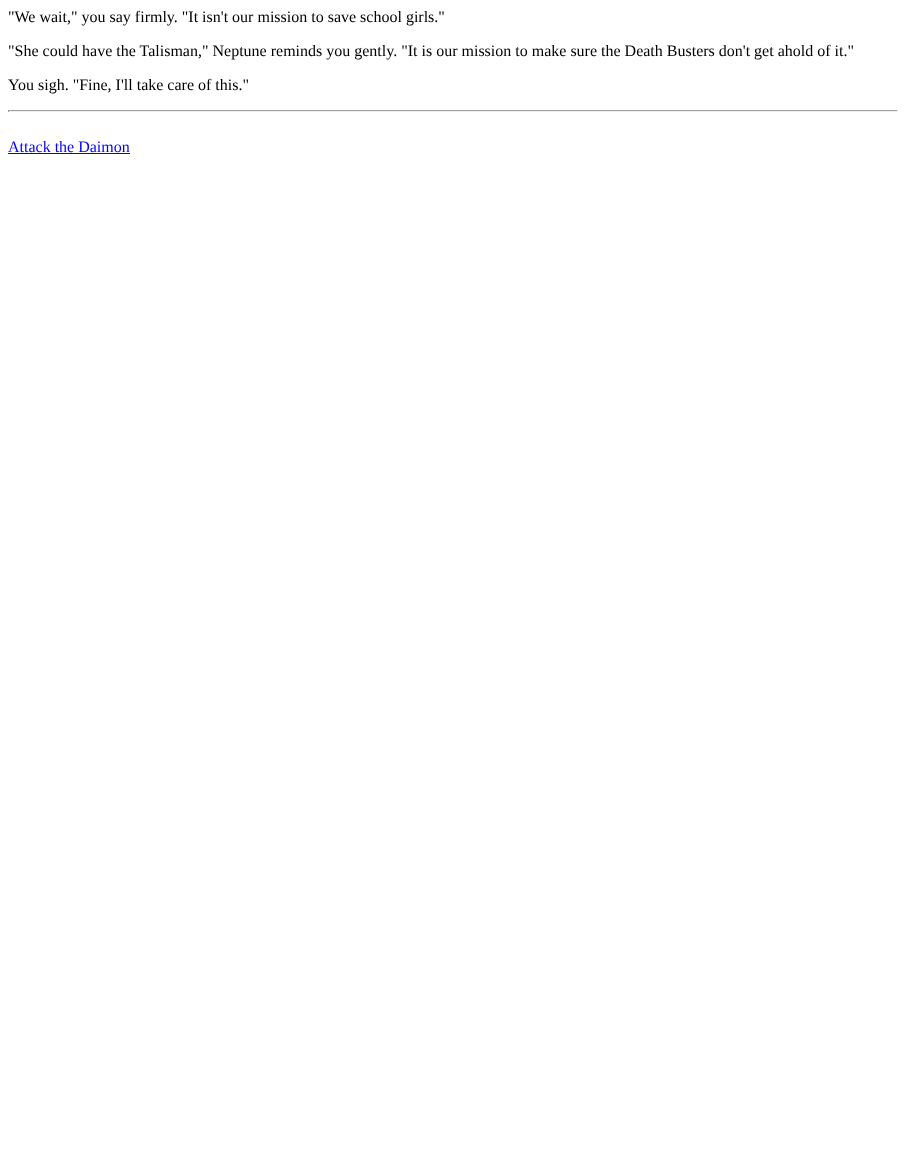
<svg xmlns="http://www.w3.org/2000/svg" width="906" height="1162">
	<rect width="100%" height="100%" fill="#FFFFFF" />
	<g font-family="Liberation Serif" font-size="16" fill="#000000">
		<text x="8" y="22">"We wait," you say firmly. "It isn't our mission to save school girls."</text>
		<text x="8" y="56">"She could have the Talisman," Neptune reminds you gently. "It is our mission to make sure the Death Busters don't get ahold of it."</text>
		<text x="8" y="90">You sigh. "Fine, I'll take care of this."</text>
	</g>
	<rect x="8" y="110" width="890" height="1" fill="#9F9F9F" />
	<rect x="897" y="110" width="1" height="2" fill="#EEEEEE" />
	<rect x="8" y="111" width="890" height="1" fill="#EEEEEE" />
	<rect x="8" y="110" width="1" height="2" fill="#9F9F9F" />
	<text x="8" y="152" font-family="Liberation Serif" font-size="16" fill="#0000FF">Attack the Daimon</text>
	<rect x="8" y="153" width="122" height="1" fill="#0000FF" />
</svg>
